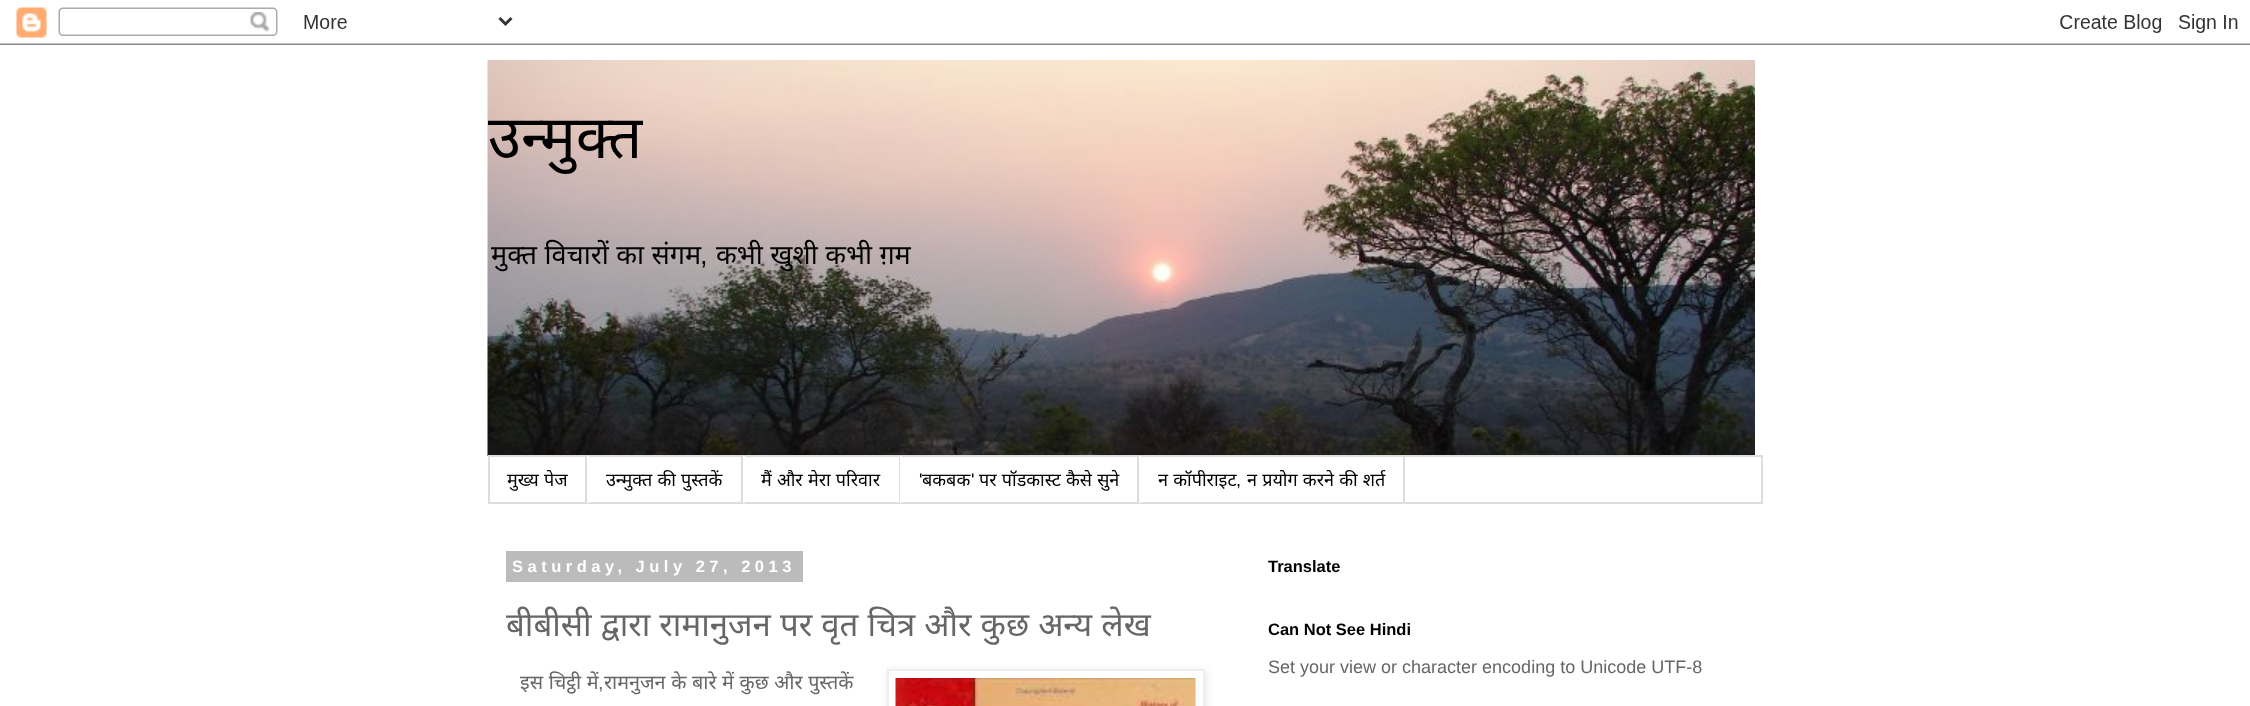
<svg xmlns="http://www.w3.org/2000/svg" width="2250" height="706">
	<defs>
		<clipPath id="clip1"><rect x="488" y="60" width="1275" height="396" /></clipPath>
	</defs>
	<rect width="100%" height="100%" fill="#FFFFFF" />
	<image x="0" y="7" width="2250" height="38" href="assets/img1.png" />
	<image x="487" y="60" width="1268" height="396" href="assets/img2.png" />
	<g clip-path="url(#clip1)">
		<text x="488" y="158" font-family="Noto Sans" font-size="60" fill="#000000">उन्मुक्त</text>
		<text x="491" y="264" word-spacing="0.5" font-family="Noto Sans" font-size="27" fill="#000000">मुक्त विचारों का संगम</text>
	</g>
	<text x="700" y="264" font-family="Liberation Sans" font-size="27" fill="#000000">,</text>
	<text x="716" y="264" word-spacing="0.5" font-family="Noto Sans" font-size="27" fill="#000000">कभी खुशी कभी ग़म</text>
	<rect x="489" y="456" width="1273" height="47" fill="none" stroke="#DDDDDD" stroke-width="2" />
	<rect x="585" y="456" width="2" height="47" fill="#DDDDDD" />
	<text x="507" y="486" word-spacing="0.5" font-family="Noto Sans" font-size="18" fill="#000000">मुख्य पेज</text>
	<rect x="741" y="456" width="2" height="47" fill="#DDDDDD" />
	<rect x="587" y="456" width="2" height="47" fill="#FFFFFF" />
	<text x="606" y="486" word-spacing="0.5" font-family="Noto Sans" font-size="18" fill="#000000">उन्मुक्त की पुस्तकें</text>
	<rect x="899" y="456" width="1" height="47" fill="#DDDDDD" />
	<rect x="743" y="456" width="2" height="47" fill="#FFFFFF" />
	<text x="761" y="486" word-spacing="0.5" font-family="Noto Sans" font-size="18" fill="#000000">मैं और मेरा परिवार</text>
	<rect x="1137" y="456" width="2" height="47" fill="#DDDDDD" />
	<rect x="900" y="456" width="2" height="47" fill="#FFFFFF" />
	<text x="919" y="486" font-family="Liberation Sans" font-size="18" fill="#000000">'</text>
	<text x="922" y="486" font-family="Noto Sans" font-size="18" fill="#000000">बकबक</text>
	<text x="971" y="486" font-family="Liberation Sans" font-size="18" fill="#000000">'</text>
	<text x="979" y="486" word-spacing="0.5" font-family="Noto Sans" font-size="18" fill="#000000">पर पॉडकास्ट कैसे सुने</text>
	<rect x="1403" y="456" width="2" height="47" fill="#DDDDDD" />
	<rect x="1139" y="456" width="2" height="47" fill="#FFFFFF" />
	<text x="1158" y="486" word-spacing="0.5" font-family="Noto Sans" font-size="18" fill="#000000">न कॉपीराइट</text>
	<text x="1236" y="486" font-family="Liberation Sans" font-size="18" fill="#000000">,</text>
	<text x="1247" y="486" word-spacing="0.5" font-family="Noto Sans" font-size="18" fill="#000000">न प्रयोग करने की शर्त</text>
	<rect x="506" y="551" width="297" height="31" fill="#BBBBBB" />
	<text x="512" y="572" font-family="Liberation Sans" font-size="16.5" font-weight="700" letter-spacing="4.5" fill="#FFFFFF">Saturday, July 27, 2013</text>
	<text x="506" y="636" word-spacing="0.5" font-family="Noto Sans" font-size="33" fill="#666666">बीबीसी द्वारा रामानुजन पर वृत चित्र और कुछ अन्य लेख</text>
	<text x="520" y="689" word-spacing="0.5" font-family="Noto Sans" font-size="19.75" fill="#666666">इस चिट्ठी में</text>
	<text x="598" y="689" font-family="Liberation Sans" font-size="19.75" fill="#666666">,</text>
	<text x="604" y="689" word-spacing="0.5" font-family="Noto Sans" font-size="19.75" fill="#666666">रामनुजन के बारे में कुछ और पुस्तकें</text>
	<rect x="888" y="671" width="318" height="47" fill="#000000" fill-opacity="0.1" filter="blur(4px)" />
	<rect x="888" y="670" width="316" height="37" fill="#FFFFFF" stroke="#EEEEEE" stroke-width="2" />
	<image x="895" y="678" width="301" height="28" href="assets/img3.png" />
	<g font-family="Liberation Sans" font-size="16.5" font-weight="700" fill="#000000">
		<text x="1268" y="572">Translate</text>
		<text x="1268" y="635">Can Not See Hindi</text>
	</g>
	<text x="1268" y="673" font-family="Liberation Sans" font-size="18" fill="#666666">Set your view or character encoding to Unicode UTF-8</text>
</svg>
